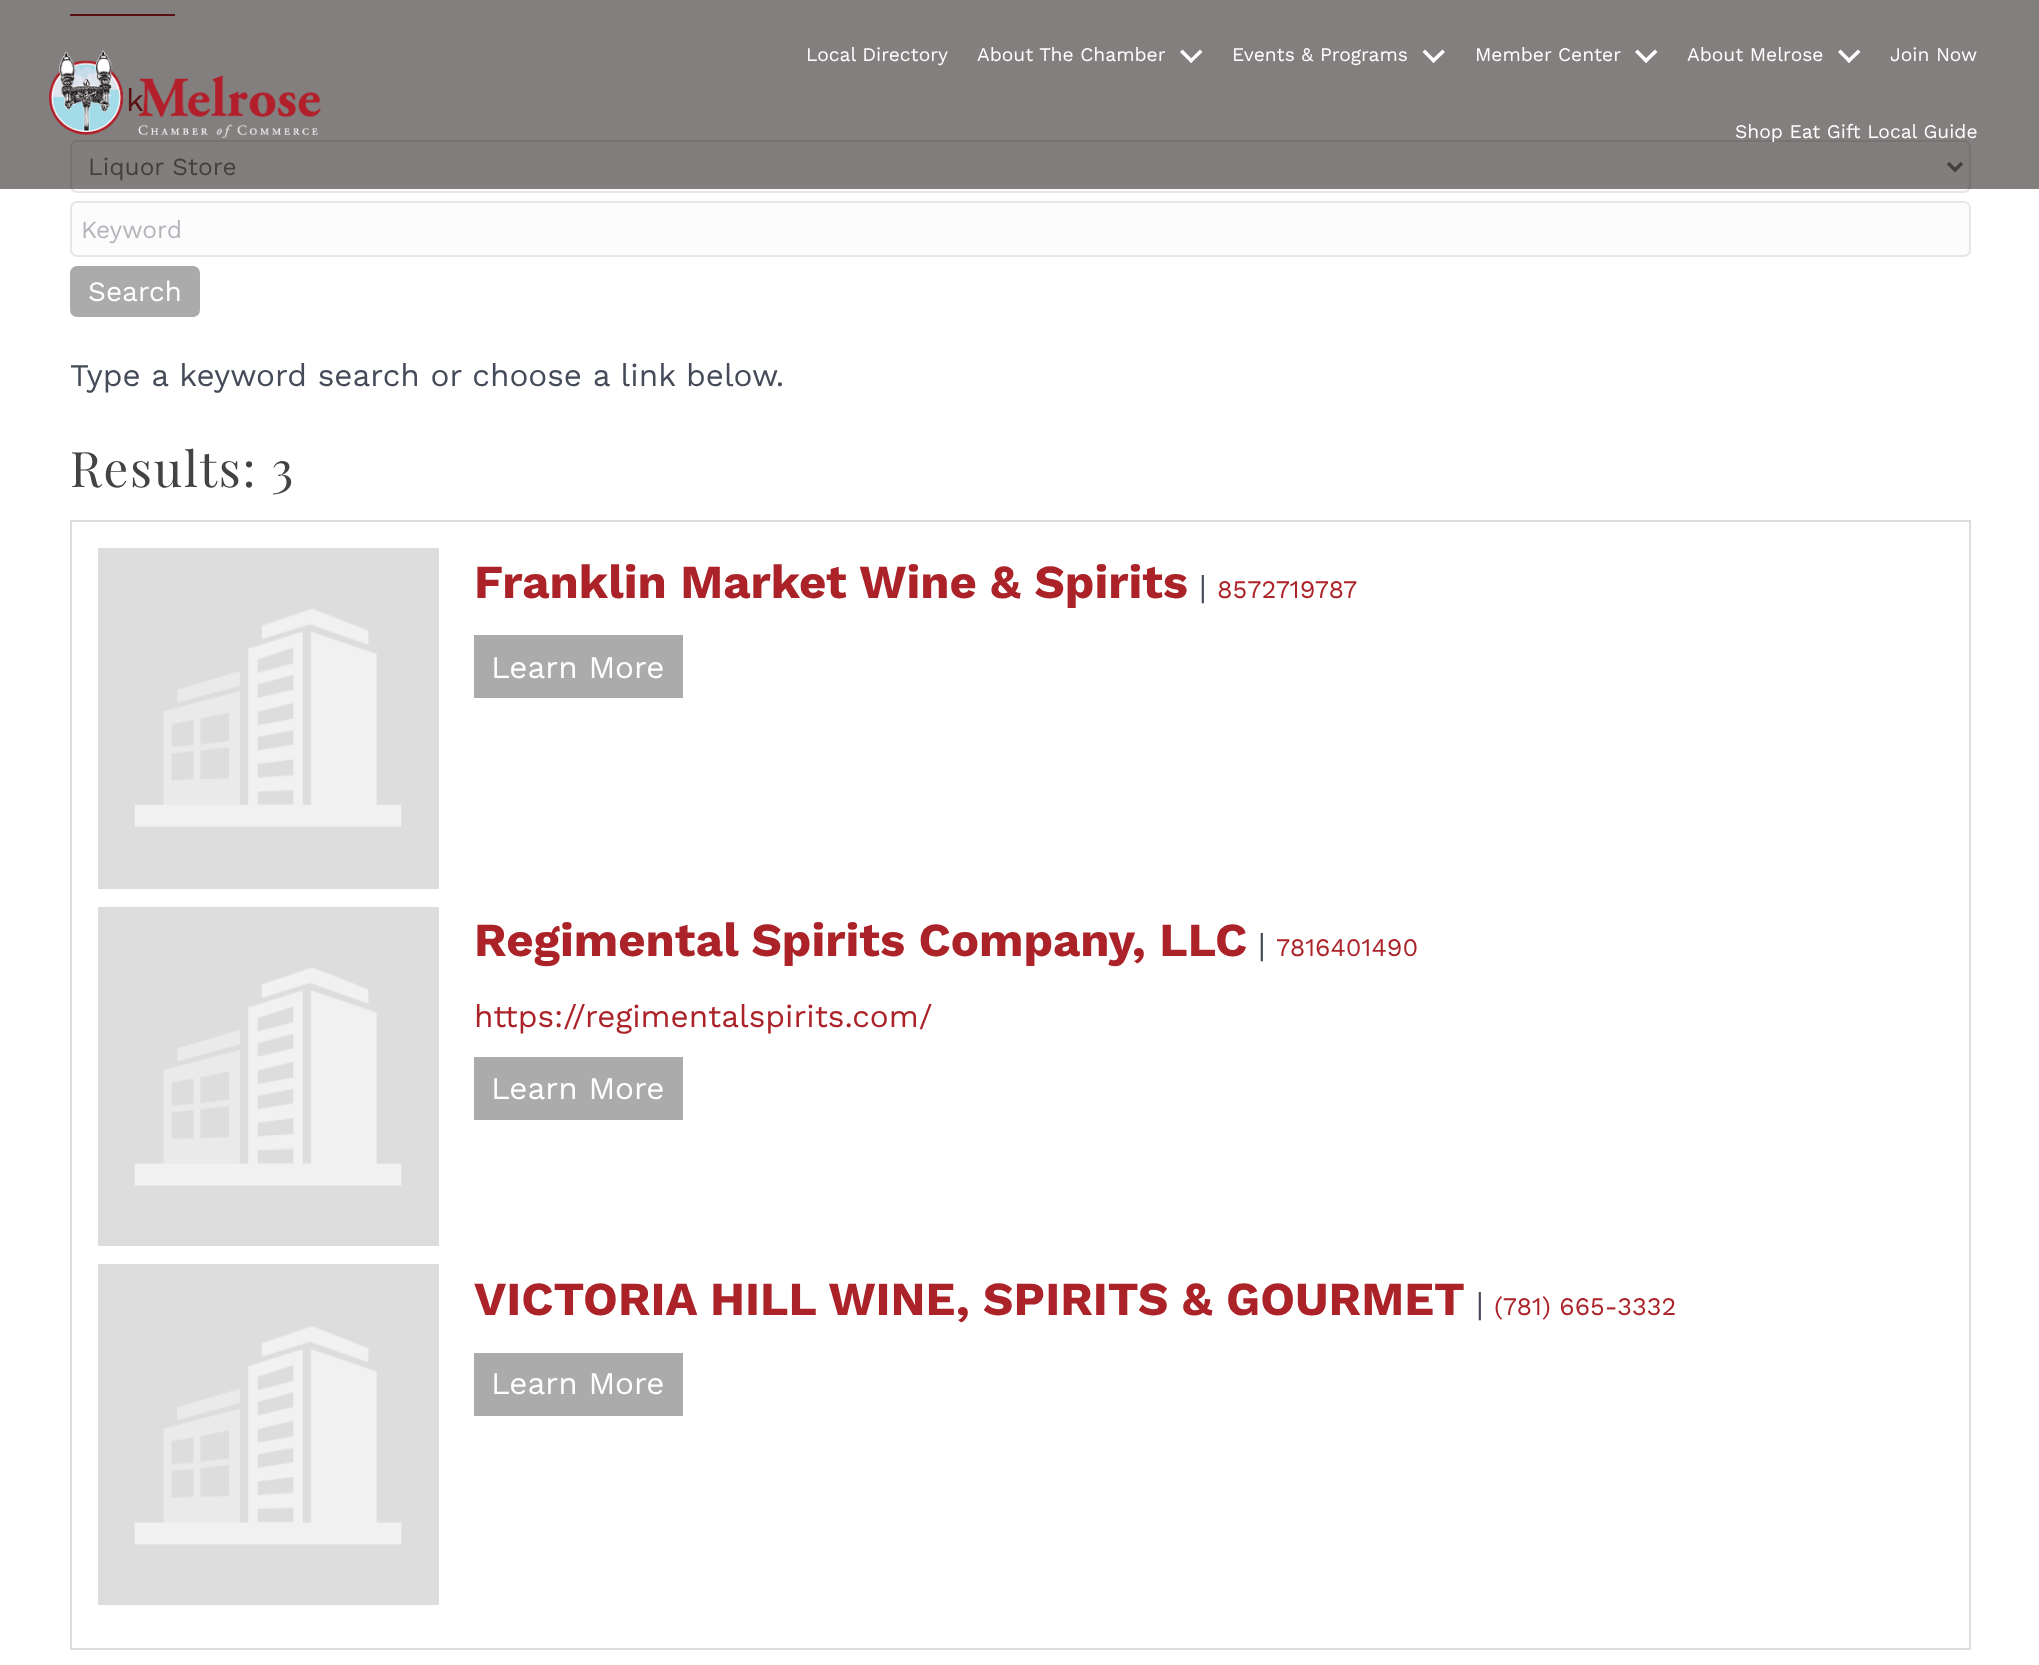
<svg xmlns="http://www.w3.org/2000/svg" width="2039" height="1665">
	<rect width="100%" height="100%" fill="#FFFFFF" />
	<rect x="70" y="14" width="105" height="2" fill="#AB2328" />
	<text x="126" y="111" font-family="Work Sans" font-size="31.5" fill="#AB2328">k</text>
	<rect x="71" y="141" width="1899" height="51" rx="6" fill="#FCFCFC" stroke="#E6E6E6" stroke-width="2" />
	<path d="M1948 163L1955 170L1962 163" fill="none" stroke="#808080" stroke-width="3.5" />
	<text x="88" y="175" font-family="Work Sans" font-size="24.5" fill="#808080">Liquor Store</text>
	<rect x="0" y="0" width="2039" height="189" fill="#0A0000" fill-opacity="0.5" />
	<image x="49" y="50" width="272" height="88" href="assets/img1.png" />
	<g font-family="Work Sans" font-size="19.25" fill="#FFFFFF">
		<text x="806" y="61">Local Directory</text>
		<text x="977" y="61">About The Chamber</text>
	</g>
	<path d="M1200 49.5L1202.5 52L1191 63L1189 60.5Z" fill="#FFFFFF" />
	<path d="M1182.5 49.5L1193.5 60.5L1191 63L1180 52Z" fill="#FFFFFF" />
	<text x="1232" y="61" font-family="Work Sans" font-size="19.25" fill="#FFFFFF">Events &amp; Programs</text>
	<path d="M1442.5 49.5L1445 52L1433.5 63L1431 60.5Z" fill="#FFFFFF" />
	<path d="M1425 49.5L1436 60.5L1433.5 63L1422.5 52Z" fill="#FFFFFF" />
	<text x="1475" y="61" font-family="Work Sans" font-size="19.25" fill="#FFFFFF">Member Center</text>
	<path d="M1655 49.5L1657.5 52L1646 63L1643.5 60.5Z" fill="#FFFFFF" />
	<path d="M1637.5 49.5L1648.5 60.5L1646 63L1635 52Z" fill="#FFFFFF" />
	<text x="1687" y="61" font-family="Work Sans" font-size="19.25" fill="#FFFFFF">About Melrose</text>
	<path d="M1858 49.5L1860.5 52L1849 63L1846.5 60.5Z" fill="#FFFFFF" />
	<path d="M1840.5 49.5L1851.5 60.5L1849 63L1838 52Z" fill="#FFFFFF" />
	<g font-family="Work Sans" font-size="19.25" fill="#FFFFFF">
		<text x="1890" y="61">Join Now</text>
		<text x="1735" y="138">Shop Eat Gift Local Guide</text>
	</g>
	<rect x="71" y="202" width="1899" height="54" rx="6" fill="#FCFCFC" stroke="#E6E6E6" stroke-width="2" />
	<text x="81" y="238" font-family="Work Sans" font-size="24.5" fill="#B3B5BB">Keyword</text>
	<rect x="70" y="266" width="130" height="51" rx="7" fill="#ABABAB" />
	<text x="88" y="301" font-family="Work Sans" font-size="28" fill="#FFFFFF">Search</text>
	<text x="70" y="386" font-family="Work Sans" font-size="31.5" fill="#454B59">Type a keyword search or choose a link below.</text>
	<text x="70" y="487" font-family="Playfair Display" font-size="49" letter-spacing="1.75" fill="#434343">Results: 3</text>
	<rect x="71" y="521" width="1899" height="1128" fill="none" stroke="#DDDDDD" stroke-width="2" />
	<rect x="98" y="548" width="341" height="341" fill="#DDDDDD" />
	<image x="134" y="608" width="268" height="219" href="assets/img2.png" />
	<text x="474" y="598" font-family="Work Sans" font-size="47.25" font-weight="700" fill="#AB2328">Franklin Market Wine &amp; Spirits</text>
	<text x="1199" y="598" font-family="Work Sans" font-size="31.5" fill="#454B59">|</text>
	<text x="1217" y="598" font-family="Work Sans" font-size="25.25" fill="#AB2328">8572719787</text>
	<rect x="474" y="635" width="209" height="63" fill="#ABABAB" />
	<text x="491" y="678" font-family="Work Sans" font-size="31.5" fill="#FFFFFF">Learn More</text>
	<rect x="98" y="907" width="341" height="339" fill="#DDDDDD" />
	<image x="134" y="967" width="268" height="219" href="assets/img3.png" />
	<text x="474" y="956" font-family="Work Sans" font-size="47.25" font-weight="700" fill="#AB2328">Regimental Spirits Company, LLC</text>
	<text x="1258" y="956" font-family="Work Sans" font-size="31.5" fill="#454B59">|</text>
	<text x="1276" y="956" font-family="Work Sans" font-size="25.25" fill="#AB2328">7816401490</text>
	<text x="474" y="1027" font-family="Work Sans" font-size="31.5" fill="#AB2328">https://regimentalspirits.com/</text>
	<rect x="474" y="1057" width="209" height="63" fill="#ABABAB" />
	<text x="491" y="1099" font-family="Work Sans" font-size="31.5" fill="#FFFFFF">Learn More</text>
	<rect x="98" y="1264" width="341" height="341" fill="#DDDDDD" />
	<image x="134" y="1326" width="268" height="219" href="assets/img4.png" />
	<text x="474" y="1315" font-family="Work Sans" font-size="47.25" font-weight="700" fill="#AB2328">VICTORIA HILL WINE, SPIRITS &amp; GOURMET</text>
	<text x="1476" y="1315" font-family="Work Sans" font-size="31.5" fill="#454B59">|</text>
	<text x="1494" y="1315" font-family="Work Sans" font-size="25.25" fill="#AB2328">(781) 665-3332</text>
	<rect x="474" y="1353" width="209" height="63" fill="#ABABAB" />
	<text x="491" y="1394" font-family="Work Sans" font-size="31.5" fill="#FFFFFF">Learn More</text>
</svg>
